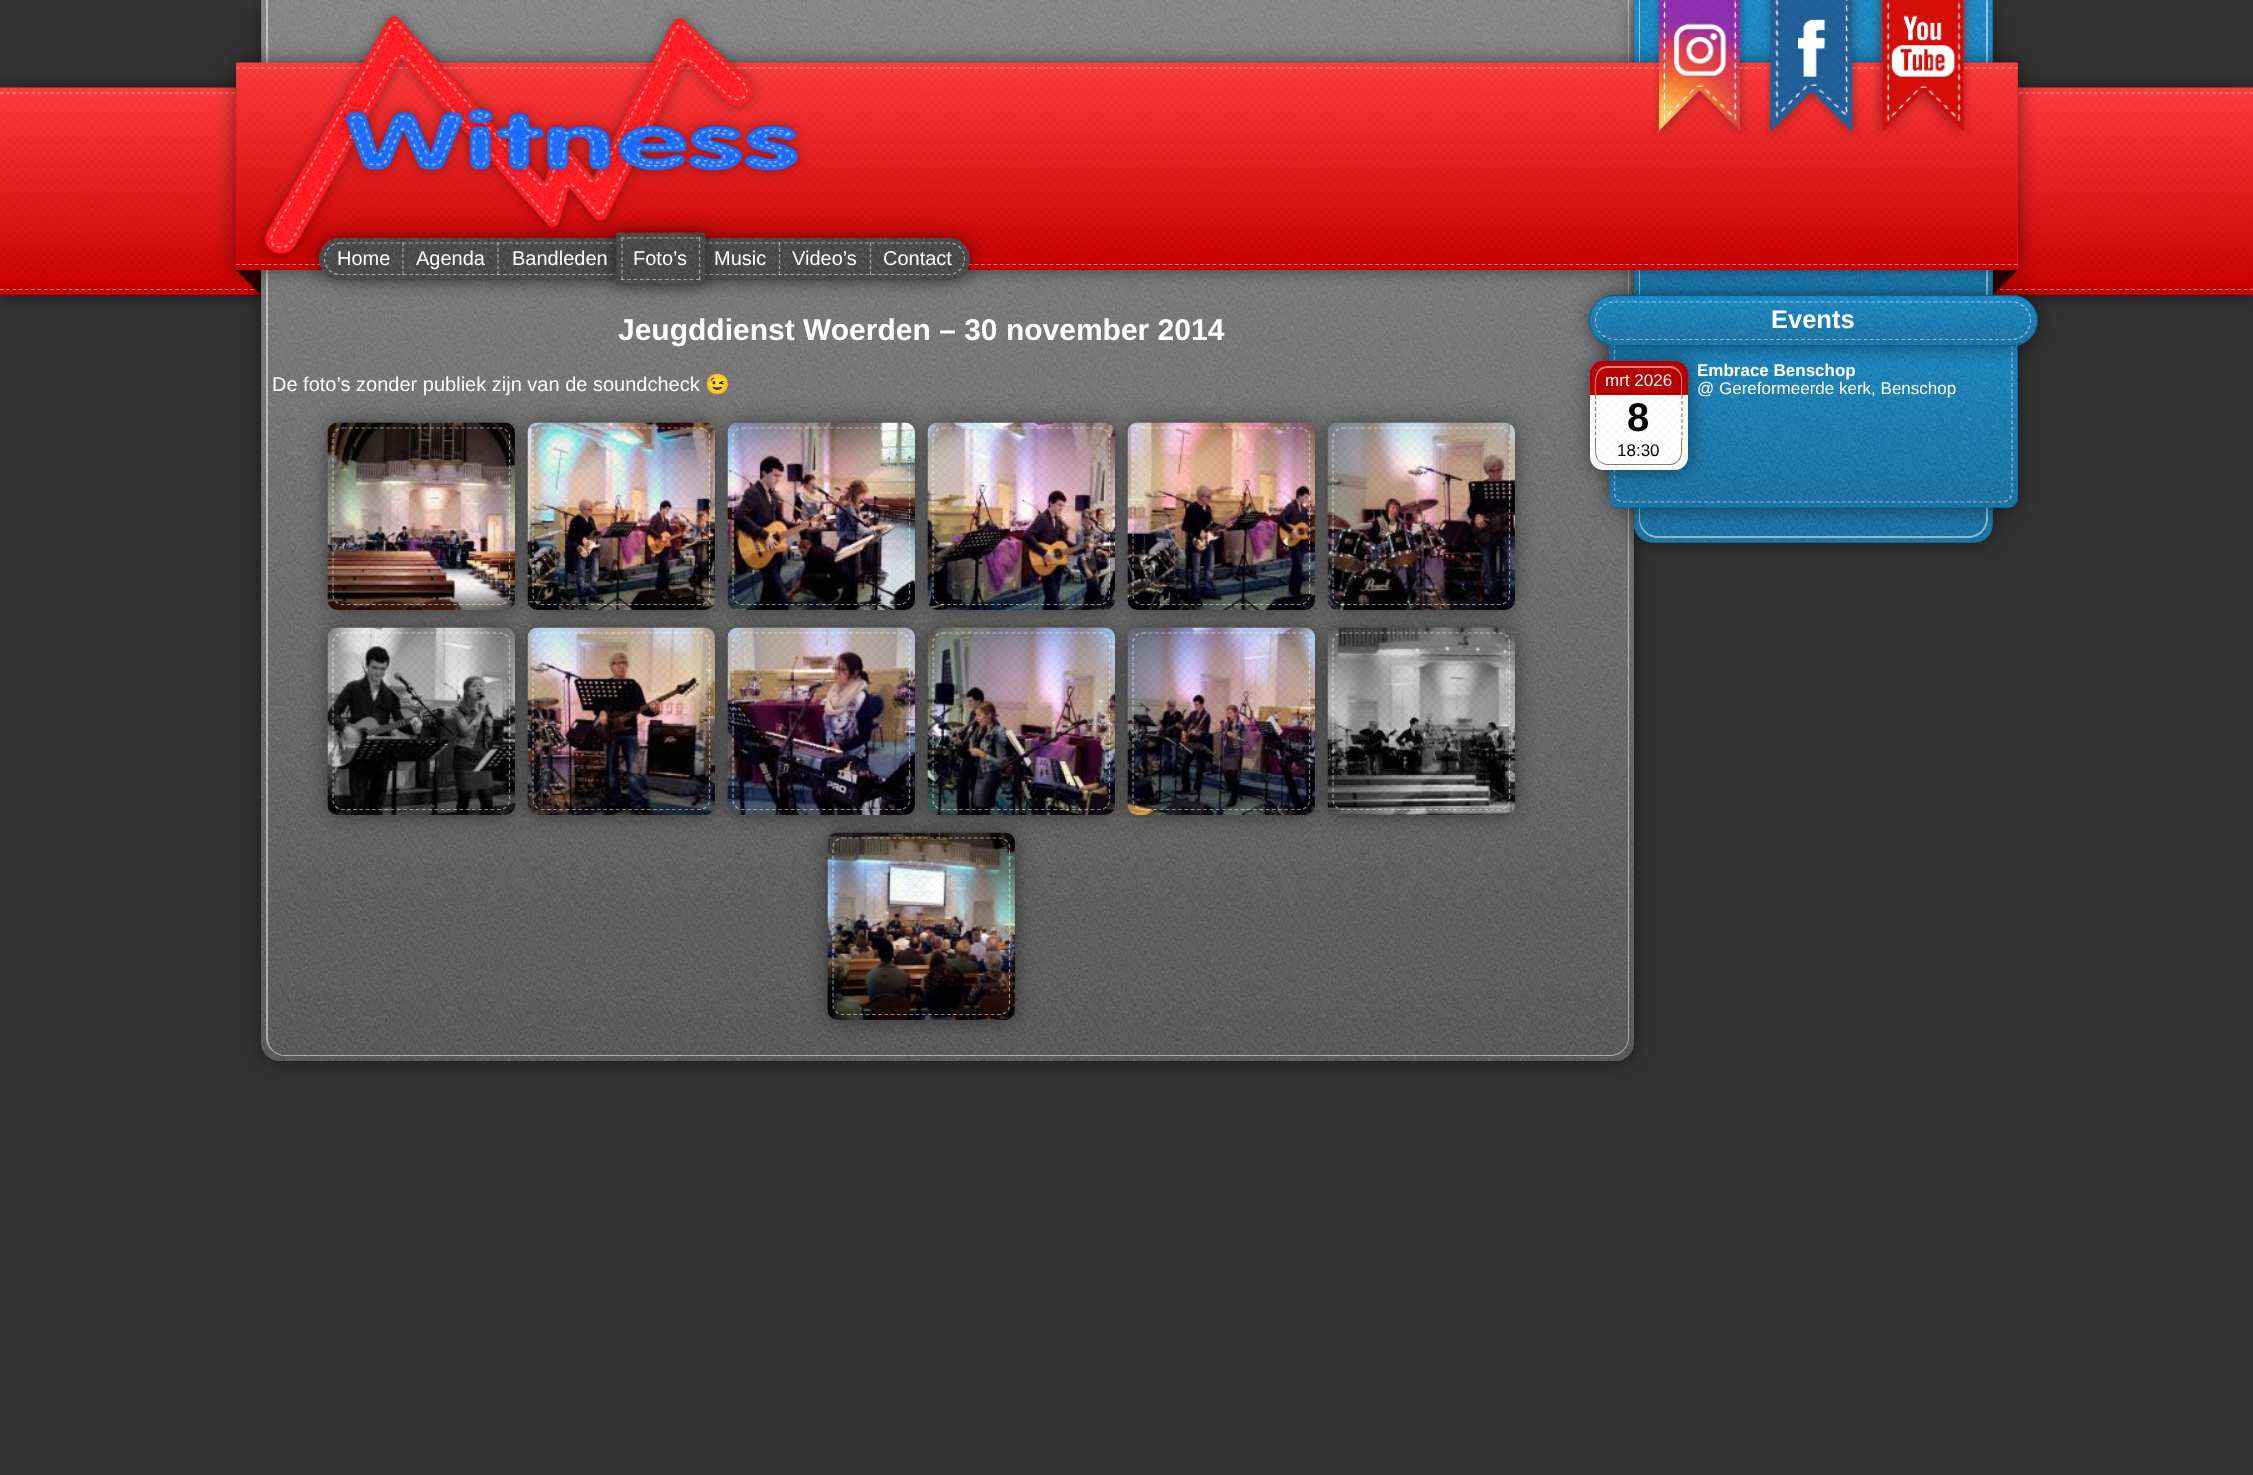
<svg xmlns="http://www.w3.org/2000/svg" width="2253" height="1475">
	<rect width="100%" height="100%" fill="#333333" />
	<rect x="0" y="88" width="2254" height="207" fill="#000000" fill-opacity="0.5" filter="blur(9.5px)" />
	<image x="0" y="87" width="2253" height="208" href="assets/img1.png" />
	<path d="M0 93H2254" fill="none" stroke="#FFFFFF" stroke-opacity="0.5" stroke-width="1.2" stroke-dasharray="3.75 2.5" />
	<path d="M0 289.5H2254" fill="none" stroke="#FFFFFF" stroke-opacity="0.5" stroke-width="1.2" stroke-dasharray="3.75 2.5" />
	<path d="M236 270H2018L1992 295H261Z" fill="#300000" />
	<rect x="261" y="0" width="1373" height="1061" rx="19" fill="#000000" fill-opacity="0.5" filter="blur(9.5px)" />
	<path d="M261 0H1634V1042C1634 1052.5 1625.5 1061 1615 1061H280C269.5 1061 261 1052.5 261 1042Z" fill="#5E5E5E" />
	<image x="261" y="0" width="1373" height="1061" href="assets/img9.png" />
	<path d="M266 0H1629V1038C1629 1048 1620 1056 1610 1056H285C275 1056 266 1048 266 1038ZM268 0H1628V1038C1628 1047 1620 1055 1610 1055H285C275 1055 268 1047 268 1038Z" fill="#FFFFFF" fill-opacity="0.5" fill-rule="evenodd" />
	<rect x="1634" y="0" width="359" height="543" rx="19" fill="#000000" fill-opacity="0.5" filter="blur(9.5px)" />
	<path d="M1634 0H1993V524C1993 534.5 1984.5 543 1974 543H1653C1642.5 543 1634 534.5 1634 524Z" fill="#006EA8" />
	<image x="1633" y="0" width="360" height="543" href="assets/img36.png" />
	<path d="M1639 0H1988V519C1988 529 1979 538 1969 538H1658C1647 538 1639 529 1639 519ZM1640 0H1986V519C1986 528 1978 536 1969 536H1658C1648 536 1640 528 1640 519Z" fill="#FFFFFF" fill-opacity="0.5" fill-rule="evenodd" />
	<rect x="1609" y="305" width="409" height="203" rx="10" fill="#000000" fill-opacity="0.5" filter="blur(9.5px)" />
	<rect x="1609" y="305" width="409" height="203" rx="10" fill="#006EA8" />
	<image x="1608" y="345" width="410" height="163" href="assets/img37.png" />
	<path d="M1624 310.5H2002.5C2007.5 310.5 2012 315 2012 320V492.5C2012 497.5 2007.5 502 2002.5 502H1624C1618.5 502 1614.5 497.5 1614.5 492.5V320C1614.5 315 1618.5 310.5 1624 310.5Z" fill="none" stroke="#FFFFFF" stroke-opacity="0.5" stroke-width="1.2" stroke-dasharray="3.75 2.5" />
	<rect x="1589" y="295" width="449" height="51" rx="25.5" fill="#000000" fill-opacity="0.5" filter="blur(9.5px)" />
	<image x="1588" y="295" width="450" height="52" href="assets/img38.png" />
	<rect x="1589.5" y="295.5" width="448" height="50" rx="25" fill="none" stroke="#006194" />
	<rect x="236" y="63" width="1782" height="207" fill="#000000" fill-opacity="0.5" filter="blur(9.5px)" />
	<rect x="236" y="63" width="1782" height="207" fill="#E41F1F" />
	<image x="236" y="62" width="1782" height="208" href="assets/img5.png" />
	<path d="M236 68H2017.5" fill="none" stroke="#FFFFFF" stroke-opacity="0.5" stroke-width="1.2" stroke-dasharray="3.75 2.51" />
	<image x="1653" y="0" width="94" height="136" href="assets/img2.png" />
	<image x="1765" y="0" width="95" height="137" href="assets/img3.png" />
	<image x="1872" y="0" width="100" height="138" href="assets/img4.png" />
	<image x="257" y="10" width="548" height="252" href="assets/img6.png" />
	<path d="M236 264.5H2017.5" fill="none" stroke="#FFFFFF" stroke-opacity="0.5" stroke-width="1.2" stroke-dasharray="3.75 2.51" />
	<rect x="319" y="238" width="651" height="42" rx="21" fill="#000000" fill-opacity="0.5" filter="blur(9.5px)" />
	<rect x="319" y="238" width="651" height="42" rx="21" fill="#333333" />
	<image x="319" y="237" width="651" height="43" href="assets/img7.png" />
	<path d="M340 243H949C957.5 243 964.5 250 964.5 259C964.5 267.5 957.5 274.5 949 274.5H340C331.5 274.5 324.5 267.5 324.5 259C324.5 250 331.5 243 340 243Z" fill="none" stroke="#FFFFFF" stroke-opacity="0.5" stroke-width="1.2" stroke-dasharray="3.75 2.5" />
	<text x="337" y="265" font-family="Liberation Sans" font-size="20" fill="#FFFFFF">Home</text>
	<path d="M403 242.5V275" fill="none" stroke="#FFFFFF" stroke-opacity="0.5" stroke-width="1.2" stroke-dasharray="3.75 2" />
	<text x="416" y="265" font-family="Liberation Sans" font-size="20" fill="#FFFFFF">Agenda</text>
	<path d="M498 242.5V275" fill="none" stroke="#FFFFFF" stroke-opacity="0.5" stroke-width="1.2" stroke-dasharray="3.75 2" />
	<rect x="616" y="233" width="89" height="52" fill="#000000" fill-opacity="0.5" filter="blur(9.5px)" />
	<text x="512" y="265" font-family="Liberation Sans" font-size="20" fill="#FFFFFF">Bandleden</text>
	<rect x="616" y="233" width="89" height="52" fill="#333333" />
	<image x="616" y="232" width="89" height="53" href="assets/img8.png" />
	<path d="M621 238H700" fill="none" stroke="#FFFFFF" stroke-opacity="0.5" stroke-width="1.2" stroke-dasharray="3.75 2.5" />
	<path d="M699.5 237.5V280" fill="none" stroke="#FFFFFF" stroke-opacity="0.5" stroke-width="1.2" stroke-dasharray="3.75 2.71" />
	<path d="M621 279.5H700" fill="none" stroke="#FFFFFF" stroke-opacity="0.5" stroke-width="1.2" stroke-dasharray="3.75 2.5" />
	<path d="M622 237.5V280" fill="none" stroke="#FFFFFF" stroke-opacity="0.5" stroke-width="1.2" stroke-dasharray="3.75 2.71" />
	<g font-family="Liberation Sans" font-size="20" fill="#FFFFFF">
		<text x="633" y="265">Foto’s</text>
		<text x="714" y="265">Music</text>
	</g>
	<path d="M779.5 242.5V275" fill="none" stroke="#FFFFFF" stroke-opacity="0.5" stroke-width="1.2" stroke-dasharray="3.75 2" />
	<text x="792" y="265" font-family="Liberation Sans" font-size="20" fill="#FFFFFF">Video’s</text>
	<path d="M870.5 242.5V275" fill="none" stroke="#FFFFFF" stroke-opacity="0.5" stroke-width="1.2" stroke-dasharray="3.75 2" />
	<text x="883" y="265" font-family="Liberation Sans" font-size="20" fill="#FFFFFF">Contact</text>
	<text x="618" y="340" font-family="Liberation Sans" font-size="30" font-weight="700" fill="#FFFFFF">Jeugddienst Woerden – 30 november 2014</text>
	<text x="272" y="391" font-family="Liberation Sans" font-size="20" fill="#FFFFFF">De foto’s zonder publiek zijn van de soundcheck</text>
	<text x="705" y="391" font-family="Noto Color Emoji" font-size="20" fill="#FFFFFF">😉</text>
	<rect x="328" y="423" width="187" height="187" rx="10" fill="#000000" fill-opacity="0.5" filter="blur(9.5px)" />
	<image x="327" y="422" width="188" height="188" href="assets/img10.png" />
	<path d="M342.5 428H500C505 428 509.5 432.5 509.5 437.5V595C509.5 600 505 604.5 500 604.5H342.5C337.5 604.5 333 600 333 595V437.5C333 432.5 337.5 428 342.5 428Z" fill="none" stroke="#FFFFFF" stroke-opacity="0.5" stroke-width="1.2" stroke-dasharray="3.75 2.5" />
	<image x="328" y="430" width="187" height="180" href="assets/img11.png" />
	<rect x="528" y="423" width="187" height="187" rx="10" fill="#000000" fill-opacity="0.5" filter="blur(9.5px)" />
	<image x="527" y="422" width="188" height="188" href="assets/img12.png" />
	<path d="M542.5 428H700C705 428 709.5 432.5 709.5 437.5V595C709.5 600 705 604.5 700 604.5H542.5C537.5 604.5 533 600 533 595V437.5C533 432.5 537.5 428 542.5 428Z" fill="none" stroke="#FFFFFF" stroke-opacity="0.5" stroke-width="1.2" stroke-dasharray="3.75 2.5" />
	<image x="528" y="423" width="187" height="187" href="assets/img13.png" />
	<rect x="728" y="423" width="187" height="187" rx="10" fill="#000000" fill-opacity="0.5" filter="blur(9.5px)" />
	<image x="727" y="422" width="188" height="188" href="assets/img14.png" />
	<path d="M742.5 428H900C905 428 909.5 432.5 909.5 437.5V595C909.5 600 905 604.5 900 604.5H742.5C737.5 604.5 733 600 733 595V437.5C733 432.5 737.5 428 742.5 428Z" fill="none" stroke="#FFFFFF" stroke-opacity="0.5" stroke-width="1.2" stroke-dasharray="3.75 2.5" />
	<image x="728" y="423" width="187" height="187" href="assets/img15.png" />
	<rect x="928" y="423" width="187" height="187" rx="10" fill="#000000" fill-opacity="0.5" filter="blur(9.5px)" />
	<image x="927" y="422" width="188" height="188" href="assets/img16.png" />
	<path d="M942.5 428H1100C1105 428 1109.5 432.5 1109.5 437.5V595C1109.5 600 1105 604.5 1100 604.5H942.5C937.5 604.5 933 600 933 595V437.5C933 432.5 937.5 428 942.5 428Z" fill="none" stroke="#FFFFFF" stroke-opacity="0.5" stroke-width="1.2" stroke-dasharray="3.75 2.5" />
	<image x="928" y="423" width="187" height="184" href="assets/img17.png" />
	<rect x="1128" y="423" width="187" height="187" rx="10" fill="#000000" fill-opacity="0.5" filter="blur(9.5px)" />
	<image x="1127" y="422" width="188" height="188" href="assets/img18.png" />
	<path d="M1142.5 428H1300C1305 428 1309.5 432.5 1309.5 437.5V595C1309.5 600 1305 604.5 1300 604.5H1142.5C1137.5 604.5 1133 600 1133 595V437.5C1133 432.5 1137.5 428 1142.5 428Z" fill="none" stroke="#FFFFFF" stroke-opacity="0.5" stroke-width="1.2" stroke-dasharray="3.75 2.5" />
	<image x="1128" y="423" width="187" height="187" href="assets/img19.png" />
	<rect x="1328" y="423" width="187" height="187" rx="10" fill="#000000" fill-opacity="0.5" filter="blur(9.5px)" />
	<image x="1327" y="422" width="188" height="188" href="assets/img20.png" />
	<path d="M1342.5 428H1500C1505 428 1509.5 432.5 1509.5 437.5V595C1509.5 600 1505 604.5 1500 604.5H1342.5C1337.5 604.5 1333 600 1333 595V437.5C1333 432.5 1337.5 428 1342.5 428Z" fill="none" stroke="#FFFFFF" stroke-opacity="0.5" stroke-width="1.2" stroke-dasharray="3.75 2.5" />
	<image x="1328" y="423" width="187" height="184" href="assets/img21.png" />
	<rect x="328" y="628" width="187" height="187" rx="10" fill="#000000" fill-opacity="0.5" filter="blur(9.5px)" />
	<image x="327" y="627" width="188" height="188" href="assets/img22.png" />
	<path d="M342.5 633H500C505 633 509.5 637.5 509.5 642.5V800C509.5 805 505 809.5 500 809.5H342.5C337.5 809.5 333 805 333 800V642.5C333 637.5 337.5 633 342.5 633Z" fill="none" stroke="#FFFFFF" stroke-opacity="0.5" stroke-width="1.2" stroke-dasharray="3.75 2.5" />
	<image x="328" y="628" width="187" height="182" href="assets/img23.png" />
	<rect x="528" y="628" width="187" height="187" rx="10" fill="#000000" fill-opacity="0.5" filter="blur(9.5px)" />
	<image x="527" y="627" width="188" height="188" href="assets/img24.png" />
	<path d="M542.5 633H700C705 633 709.5 637.5 709.5 642.5V800C709.5 805 705 809.5 700 809.5H542.5C537.5 809.5 533 805 533 800V642.5C533 637.5 537.5 633 542.5 633Z" fill="none" stroke="#FFFFFF" stroke-opacity="0.5" stroke-width="1.2" stroke-dasharray="3.75 2.5" />
	<image x="528" y="628" width="187" height="182" href="assets/img25.png" />
	<rect x="728" y="628" width="187" height="187" rx="10" fill="#000000" fill-opacity="0.5" filter="blur(9.5px)" />
	<image x="727" y="627" width="188" height="188" href="assets/img26.png" />
	<path d="M742.5 633H900C905 633 909.5 637.5 909.5 642.5V800C909.5 805 905 809.5 900 809.5H742.5C737.5 809.5 733 805 733 800V642.5C733 637.5 737.5 633 742.5 633Z" fill="none" stroke="#FFFFFF" stroke-opacity="0.5" stroke-width="1.2" stroke-dasharray="3.75 2.5" />
	<image x="728" y="628" width="187" height="187" href="assets/img27.png" />
	<rect x="928" y="628" width="187" height="187" rx="10" fill="#000000" fill-opacity="0.5" filter="blur(9.5px)" />
	<image x="927" y="627" width="188" height="188" href="assets/img28.png" />
	<path d="M942.5 633H1100C1105 633 1109.5 637.5 1109.5 642.5V800C1109.5 805 1105 809.5 1100 809.5H942.5C937.5 809.5 933 805 933 800V642.5C933 637.5 937.5 633 942.5 633Z" fill="none" stroke="#FFFFFF" stroke-opacity="0.5" stroke-width="1.2" stroke-dasharray="3.75 2.5" />
	<image x="928" y="628" width="187" height="183" href="assets/img29.png" />
	<rect x="1128" y="628" width="187" height="187" rx="10" fill="#000000" fill-opacity="0.5" filter="blur(9.5px)" />
	<image x="1127" y="627" width="188" height="188" href="assets/img30.png" />
	<path d="M1142.5 633H1300C1305 633 1309.5 637.5 1309.5 642.5V800C1309.5 805 1305 809.5 1300 809.5H1142.5C1137.5 809.5 1133 805 1133 800V642.5C1133 637.5 1137.5 633 1142.5 633Z" fill="none" stroke="#FFFFFF" stroke-opacity="0.5" stroke-width="1.2" stroke-dasharray="3.75 2.5" />
	<image x="1128" y="628" width="187" height="187" href="assets/img31.png" />
	<rect x="1328" y="628" width="187" height="187" rx="10" fill="#000000" fill-opacity="0.5" filter="blur(9.5px)" />
	<image x="1327" y="627" width="188" height="188" href="assets/img32.png" />
	<path d="M1342.5 633H1500C1505 633 1509.5 637.5 1509.5 642.5V800C1509.5 805 1505 809.5 1500 809.5H1342.5C1337.5 809.5 1333 805 1333 800V642.5C1333 637.5 1337.5 633 1342.5 633Z" fill="none" stroke="#FFFFFF" stroke-opacity="0.5" stroke-width="1.2" stroke-dasharray="3.75 2.5" />
	<image x="1328" y="628" width="187" height="187" href="assets/img33.png" />
	<rect x="828" y="833" width="187" height="187" rx="10" fill="#000000" fill-opacity="0.5" filter="blur(9.5px)" />
	<image x="827" y="832" width="188" height="188" href="assets/img34.png" />
	<path d="M842.5 838H1000C1005 838 1009.5 842.5 1009.5 847.5V1005C1009.5 1010 1005 1014.5 1000 1014.5H842.5C837.5 1014.5 833 1010 833 1005V847.5C833 842.5 837.5 838 842.5 838Z" fill="none" stroke="#FFFFFF" stroke-opacity="0.5" stroke-width="1.2" stroke-dasharray="3.75 2.5" />
	<image x="828" y="838" width="187" height="177" href="assets/img35.png" />
	<path d="M1614.5 302H2012C2022 302 2030.5 310.5 2030.5 320.5C2030.5 331 2022 339.5 2012 339.5H1614.5C1604 339.5 1595.5 331 1595.5 320.5C1595.5 310.5 1604 302 1614.5 302Z" fill="none" stroke="#FFFFFF" stroke-opacity="0.5" stroke-width="1.2" stroke-dasharray="3.75 2.5" />
	<text x="1771" y="328" font-family="Liberation Sans" font-size="25.5" font-weight="700" fill="#FFFFFF">Events</text>
	<text x="1697" y="376" font-family="Liberation Sans" font-size="17" font-weight="700" fill="#FFFFFF">Embrace Benschop</text>
	<rect x="1590" y="361" width="98" height="109" rx="13" fill="#000000" fill-opacity="0.5" filter="blur(9.5px)" />
	<image x="1590" y="370" width="13" height="100" href="assets/img39.png" />
	<path d="M1603 361H1675C1682 361 1688 367 1688 374V395H1590V374C1590 367 1596 361 1603 361Z" fill="#BA0000" />
	<path d="M1608 366H1670C1677 366 1682 372 1682 379V395H1595C1595 385 1592 366 1608 366ZM1608 368H1670C1676 368 1681 373 1681 379V395H1596C1596 386 1593 368 1608 368Z" fill="#DD8080" fill-rule="evenodd" />
	<text x="1605" y="386" font-family="Liberation Sans" font-size="17" fill="#FFFFFF">mrt 2026</text>
	<rect x="1590" y="395" width="98" height="46" fill="#FFFFFF" />
	<path d="M1682 395V441" fill="none" stroke="#808080" stroke-width="1.2" stroke-dasharray="3.75 2.33" />
	<path d="M1595.5 395V441" fill="none" stroke="#808080" stroke-width="1.2" stroke-dasharray="3.75 2.33" />
	<text x="1627" y="431" font-family="Liberation Sans" font-size="40" font-weight="700" fill="#000000">8</text>
	<path d="M1590 441H1688V457C1688 464 1682 470 1675 470H1603C1596 470 1590 464 1590 457Z" fill="#FFFFFF" />
	<path d="M1595 441H1682V452C1682 459 1677 465 1670 465H1608C1601 465 1595 459 1595 452ZM1596 441H1681V452C1681 459 1676 464 1670 464H1608C1601 464 1596 459 1596 452Z" fill="#808080" fill-rule="evenodd" />
	<text x="1617" y="456" font-family="Liberation Sans" font-size="17" fill="#000000">18:30</text>
	<image x="1590" y="361" width="97" height="109" href="assets/img40.png" />
	<text x="1697" y="394" font-family="Liberation Sans" font-size="17" fill="#FFFFFF">@ Gereformeerde kerk, Benschop</text>
</svg>
